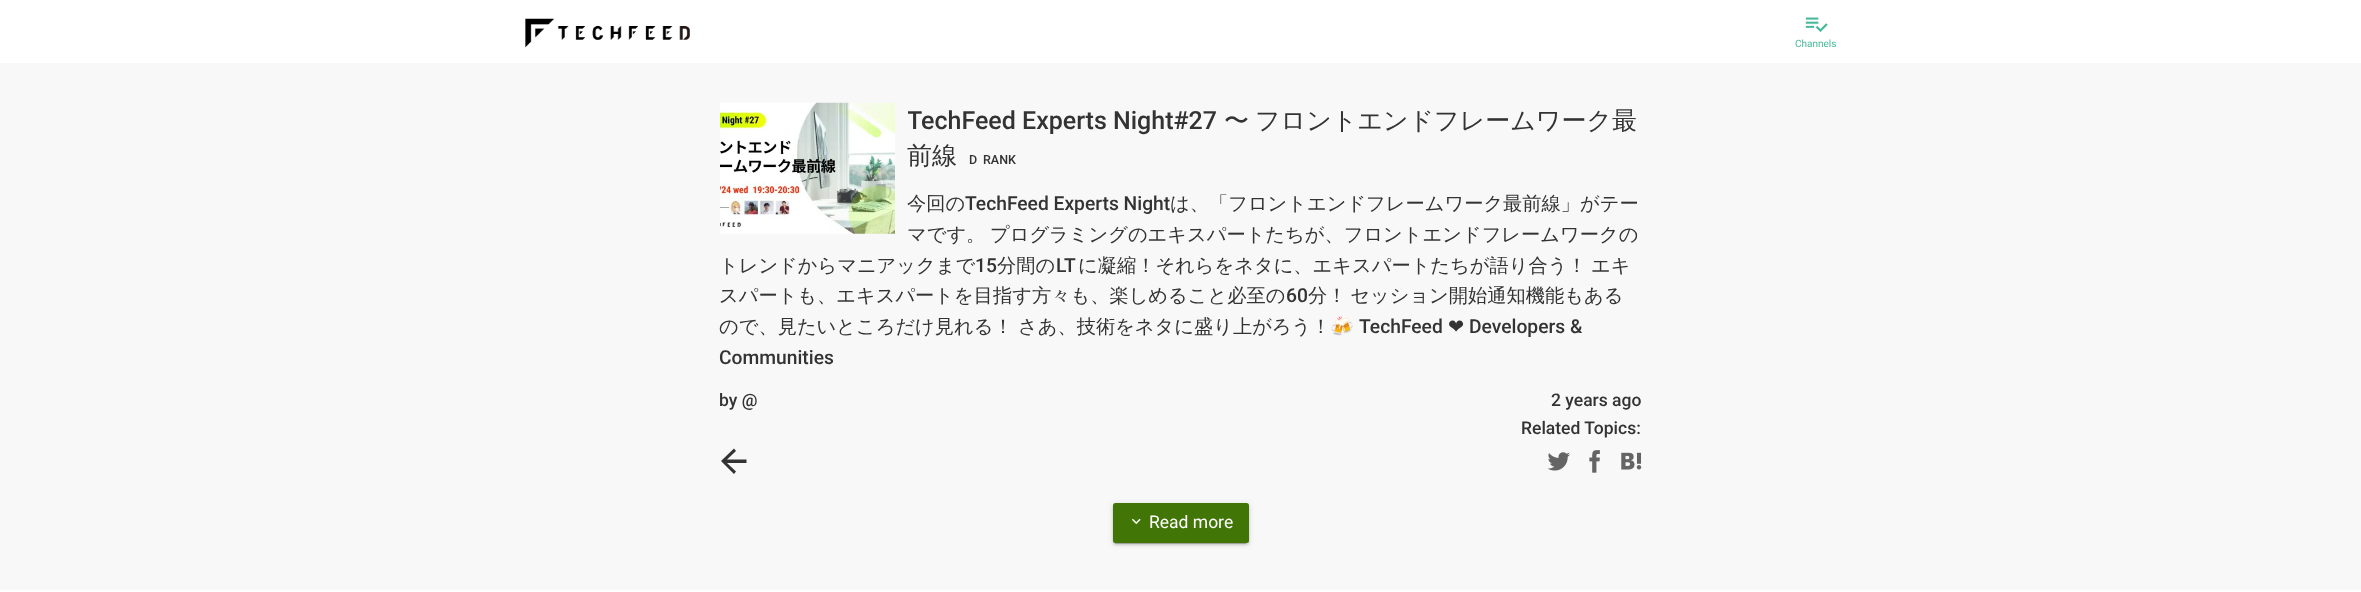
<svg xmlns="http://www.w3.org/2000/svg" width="2361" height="592">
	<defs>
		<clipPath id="clip1"><rect x="908" y="103" width="735" height="73" /></clipPath>
	</defs>
	<rect width="100%" height="100%" fill="#F8F8F8" />
	<rect x="0" y="0" width="2361" height="63" fill="#FFFFFF" />
	<image x="525" y="18" width="165" height="30" href="assets/img1.png" />
	<image x="1805" y="17" width="23" height="15" href="assets/img2.png" />
	<text x="1795" y="47" font-family="Roboto" font-size="10" fill="#47B89A">Channels</text>
	<image x="720" y="102" width="175" height="132" href="assets/img3.png" />
	<g clip-path="url(#clip1)">
		<text x="907" y="129" font-family="Roboto" font-size="25" font-weight="500" fill="#333333">TechFeed Experts Night#27</text>
	</g>
	<g font-family="WenQuanYi Zen Hei" font-size="25" font-weight="500" fill="#333333">
		<text x="1224" y="129">〜</text>
		<text x="1255" y="129">フロントエンドフレームワーク最</text>
		<text x="907" y="164">前線</text>
	</g>
	<g font-family="Roboto" font-size="12.5" font-weight="500" fill="#333333">
		<text x="969" y="164">D</text>
		<text x="983" y="164">RANK</text>
	</g>
	<text x="907" y="210" font-family="WenQuanYi Zen Hei" font-size="19.25" font-weight="500" fill="#333333">今回の</text>
	<text x="965" y="210" font-family="Roboto" font-size="19.25" font-weight="500" fill="#333333">TechFeed Experts Night</text>
	<g font-family="WenQuanYi Zen Hei" font-size="19.25" font-weight="500" fill="#333333">
		<text x="1170" y="210">は、「フロントエンドフレームワーク最前線」がテー</text>
		<text x="907" y="241">マです。</text>
		<text x="990" y="241">プログラミングのエキスパートたちが、フロントエンドフレームワークの</text>
		<text x="719" y="272">トレンドからマニアックまで</text>
	</g>
	<text x="975" y="272" font-family="Roboto" font-size="19.25" font-weight="500" fill="#333333">15</text>
	<text x="997" y="272" font-family="WenQuanYi Zen Hei" font-size="19.25" font-weight="500" fill="#333333">分間の</text>
	<text x="1056" y="272" font-family="Roboto" font-size="19.25" font-weight="500" fill="#333333">LT</text>
	<g font-family="WenQuanYi Zen Hei" font-size="19.25" font-weight="500" fill="#333333">
		<text x="1078" y="272">に凝縮！それらをネタに、エキスパートたちが語り合う！</text>
		<text x="1591" y="272">エキ</text>
		<text x="719" y="302">スパートも、エキスパートを目指す方々も、楽しめること必至の</text>
	</g>
	<text x="1286" y="302" font-family="Roboto" font-size="19.25" font-weight="500" fill="#333333">60</text>
	<g font-family="WenQuanYi Zen Hei" font-size="19.25" font-weight="500" fill="#333333">
		<text x="1308" y="302" word-spacing="-2">分！ セッション開始通知機能もある</text>
		<text x="719" y="333">ので、見たいところだけ見れる！</text>
		<text x="1018" y="333">さあ、技術をネタに盛り上がろう！</text>
	</g>
	<text x="1330" y="333" font-family="Noto Color Emoji" font-size="19.25" fill="#333333">🍻</text>
	<text x="1359" y="333" font-family="Roboto" font-size="19.25" font-weight="500" fill="#333333">TechFeed</text>
	<text x="1448" y="333" font-family="DejaVu Sans" font-size="19.25" fill="#333333">❤</text>
	<g font-family="Roboto" font-size="19.25" font-weight="500" fill="#333333">
		<text x="1469" y="333">Developers &amp;</text>
		<text x="719" y="364">Communities</text>
	</g>
	<g font-family="Roboto" font-size="17.5" font-weight="500" fill="#333333">
		<text x="719" y="406">by @</text>
		<text x="1551" y="406">2 years ago</text>
		<text x="1521" y="434">Related Topics:</text>
	</g>
	<path d="M746.5 459.5V463H727L736 471.5L734 474L721 461L734 448.5L736 451L727 459.5Z" fill="#333333" />
	<image x="1547" y="452" width="23" height="19" href="assets/img4.png" />
	<image x="1589" y="450" width="11" height="23" href="assets/img5.png" />
	<image x="1621" y="452" width="21" height="18" href="assets/img6.png" />
	<rect x="1113" y="504" width="136" height="40" rx="2.5" fill="#000000" fill-opacity="0.12" filter="blur(3px)" />
	<rect x="1115" y="509" width="131" height="35" fill="#000000" fill-opacity="0.2" filter="blur(0.5px)" />
	<rect x="1113" y="505" width="136" height="40" rx="2.5" fill="#000000" fill-opacity="0.14" filter="blur(1px)" />
	<rect x="1113" y="503" width="136" height="40" rx="2.5" fill="#417505" />
	<image x="1132" y="518" width="9" height="7" href="assets/img7.png" />
	<text x="1149" y="528" font-family="Roboto" font-size="17.5" fill="#FFFFFF">Read more</text>
	<rect x="0" y="590" width="2361" height="2" fill="#FFFFFF" />
</svg>
